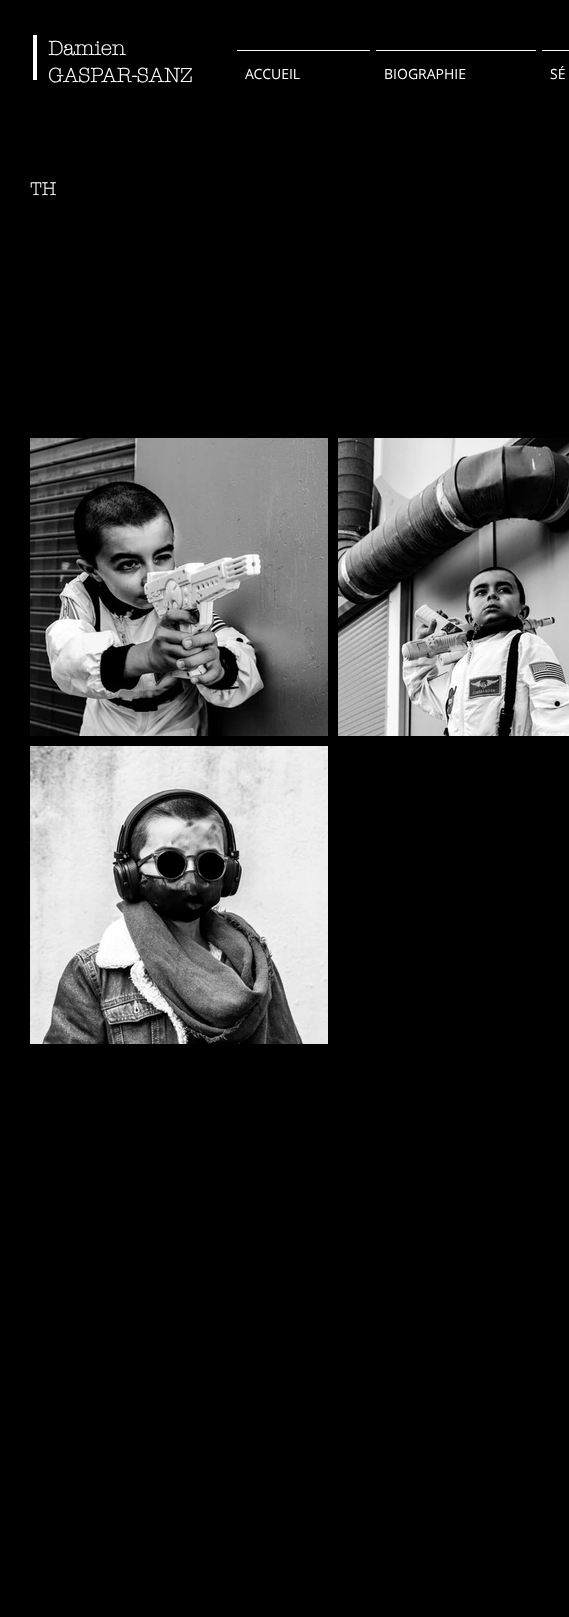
<svg xmlns="http://www.w3.org/2000/svg" width="569" height="1617">
	<rect width="100%" height="100%" fill="#000000" />
	<rect x="33" y="35" width="4" height="45" fill="#FFFFFF" />
	<g font-family="'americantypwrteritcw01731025'" font-size="20" font-weight="700" fill="#FFFFFF">
		<text x="48" y="55">Damien</text>
		<text x="48" y="82">GASPAR-SANZ</text>
	</g>
	<rect x="237" y="50" width="133" height="1" fill="#FFFFFF" />
	<text x="245" y="79" font-family="Open Sans" font-size="14" fill="#FFFFFF">ACCUEIL</text>
	<rect x="376" y="50" width="160" height="1" fill="#FFFFFF" />
	<text x="384" y="79" font-family="Open Sans" font-size="14" fill="#FFFFFF">BIOGRAPHIE</text>
	<rect x="542" y="50" width="27" height="1" fill="#FFFFFF" />
	<text x="550" y="79" font-family="Open Sans" font-size="14" fill="#FFFFFF">SÉ</text>
	<text x="30" y="195" font-family="'americantypwrteritcw01731025'" font-size="18" font-weight="700" fill="#FFFFFF">TH</text>
	<image x="30" y="438" width="298" height="298" href="assets/img1.png" />
	<image x="338" y="438" width="231" height="298" href="assets/img2.png" />
	<image x="30" y="746" width="298" height="298" href="assets/img3.png" />
</svg>
